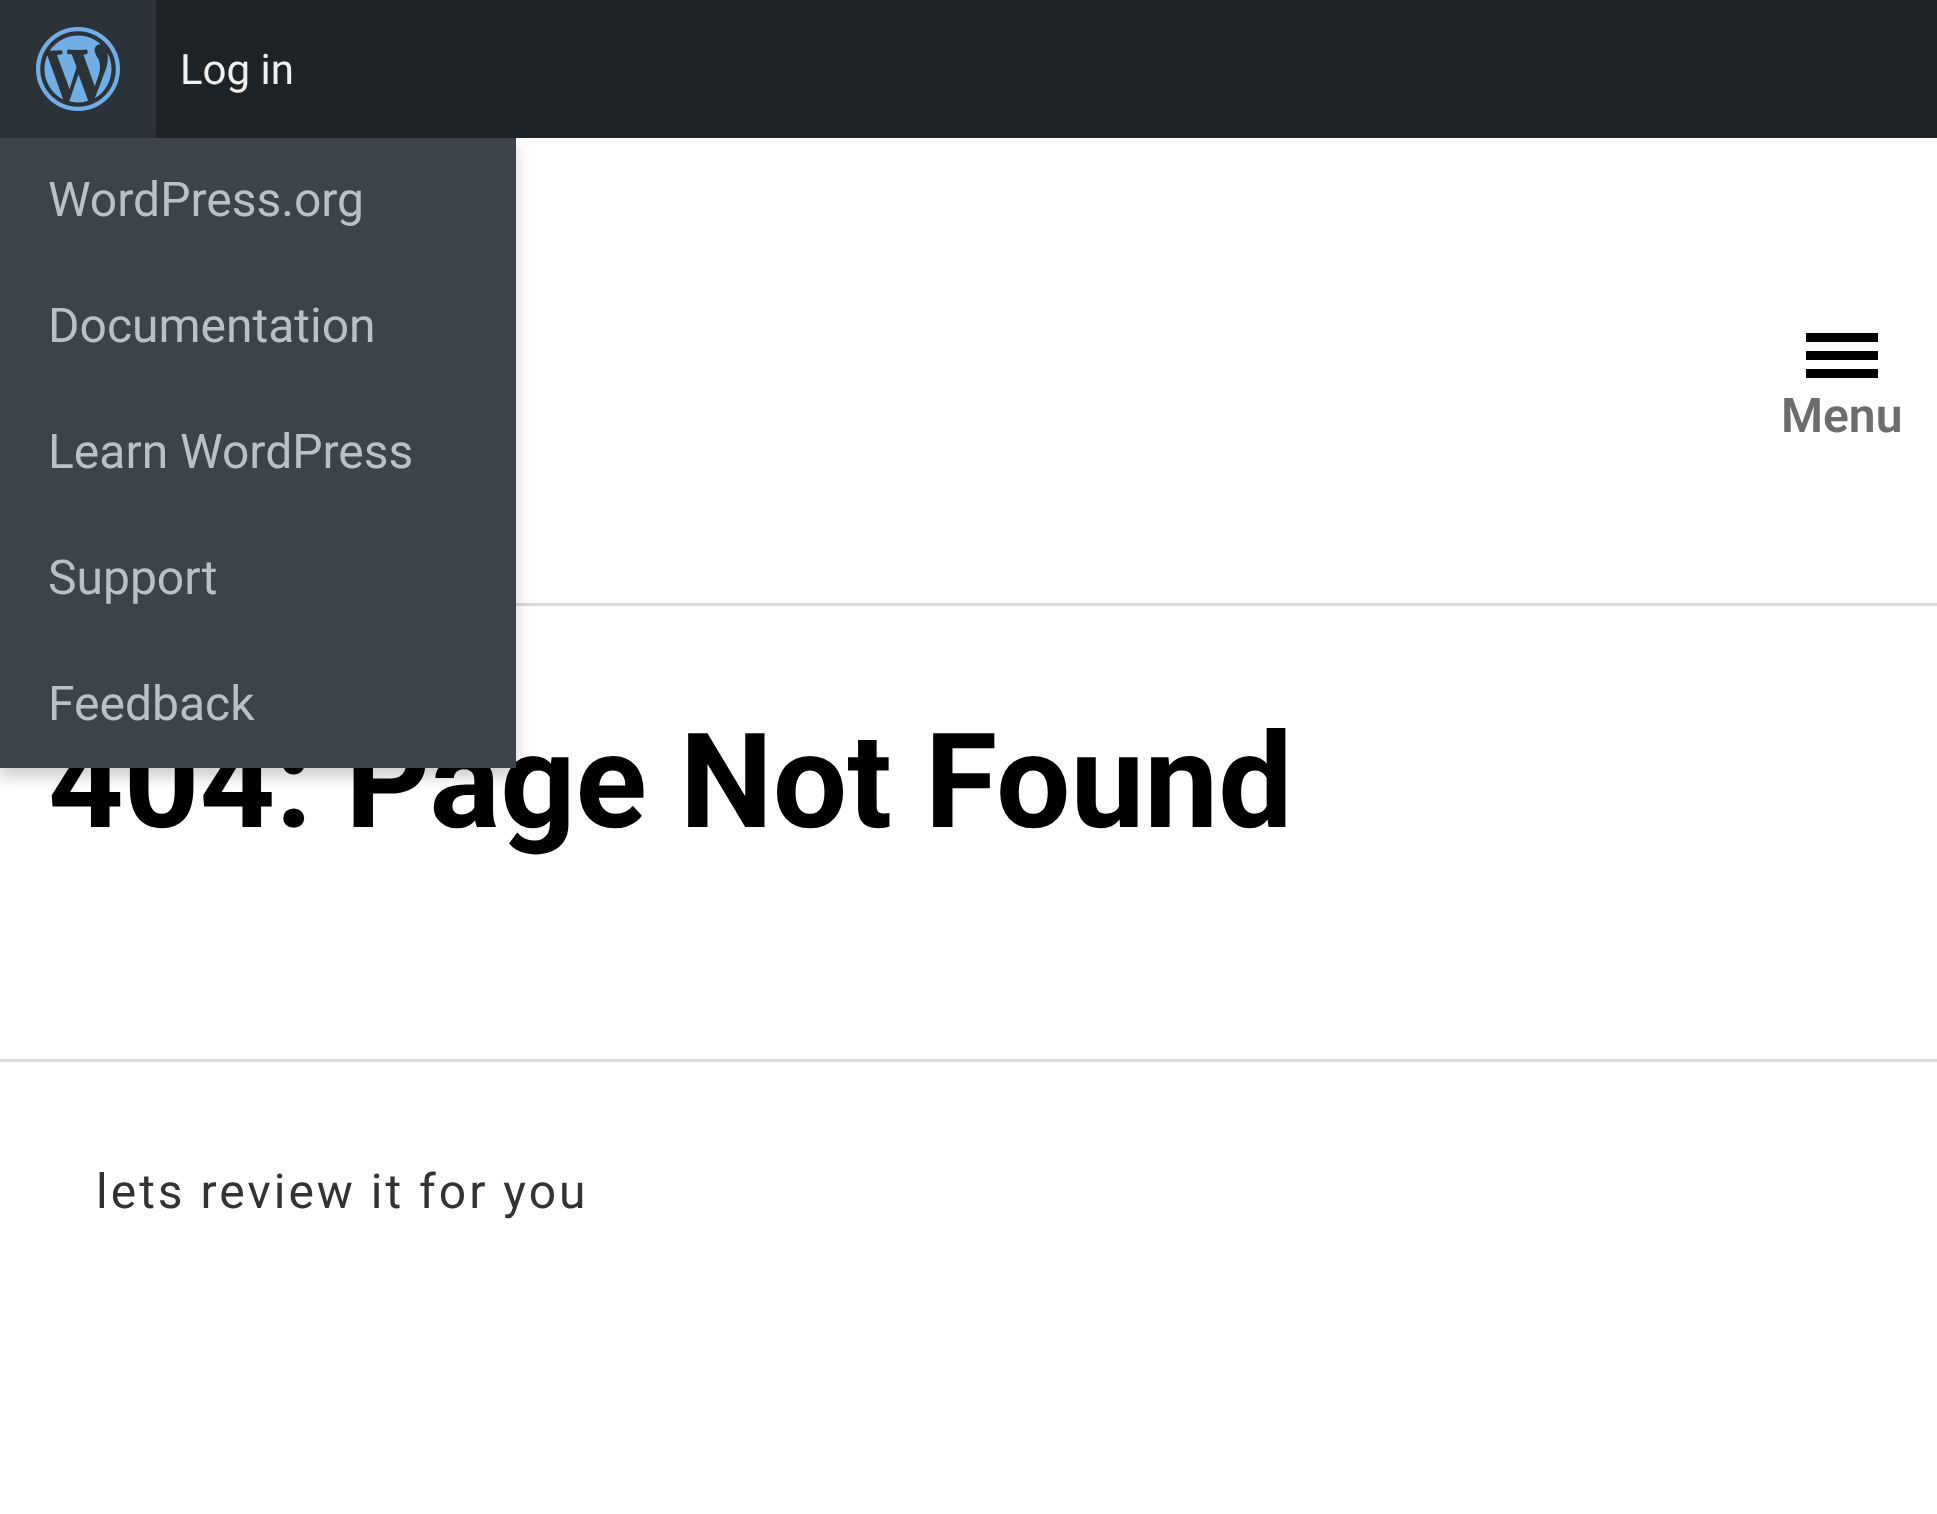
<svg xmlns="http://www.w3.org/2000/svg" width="1937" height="1514">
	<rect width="100%" height="100%" fill="#FFFFFF" />
	<rect x="156" y="0" width="1781" height="138" fill="#1D2327" />
	<text x="180" y="84" font-family="Roboto" font-size="42" fill="#F0F0F1">Log in</text>
	<rect x="0" y="0" width="156" height="138" fill="#2C3338" />
	<image x="36" y="27" width="84" height="84" href="assets/img1.png" />
	<rect x="516" y="603" width="1421" height="3" fill="#DBDBDB" />
	<rect x="0" y="147" width="516" height="630" fill="#000000" fill-opacity="0.2" filter="blur(7.5px)" />
	<text x="48" y="827" font-family="Roboto" font-size="132" font-weight="700" fill="#000000">404: Page Not Found</text>
	<rect x="0" y="138" width="516" height="630" fill="#3C434A" />
	<g font-family="Roboto" font-size="48" fill="#BAC0C7">
		<text x="48" y="216">WordPress.org</text>
		<text x="48" y="342">Documentation</text>
		<text x="48" y="468">Learn WordPress</text>
		<text x="48" y="594">Support</text>
		<text x="48" y="720">Feedback</text>
	</g>
	<rect x="1806" y="351" width="72" height="9" fill="#000000" />
	<rect x="1806" y="333" width="72" height="9" fill="#000000" />
	<rect x="1806" y="369" width="72" height="9" fill="#000000" />
	<text x="1781" y="432" font-family="Roboto" font-size="48" font-weight="600" fill="#6D6D6D">Menu</text>
	<rect x="0" y="1059" width="1937" height="3" fill="#DBDBDB" />
	<text x="96" y="1208" font-family="Roboto" font-size="48" letter-spacing="3" fill="#333333">lets review it for you</text>
</svg>
